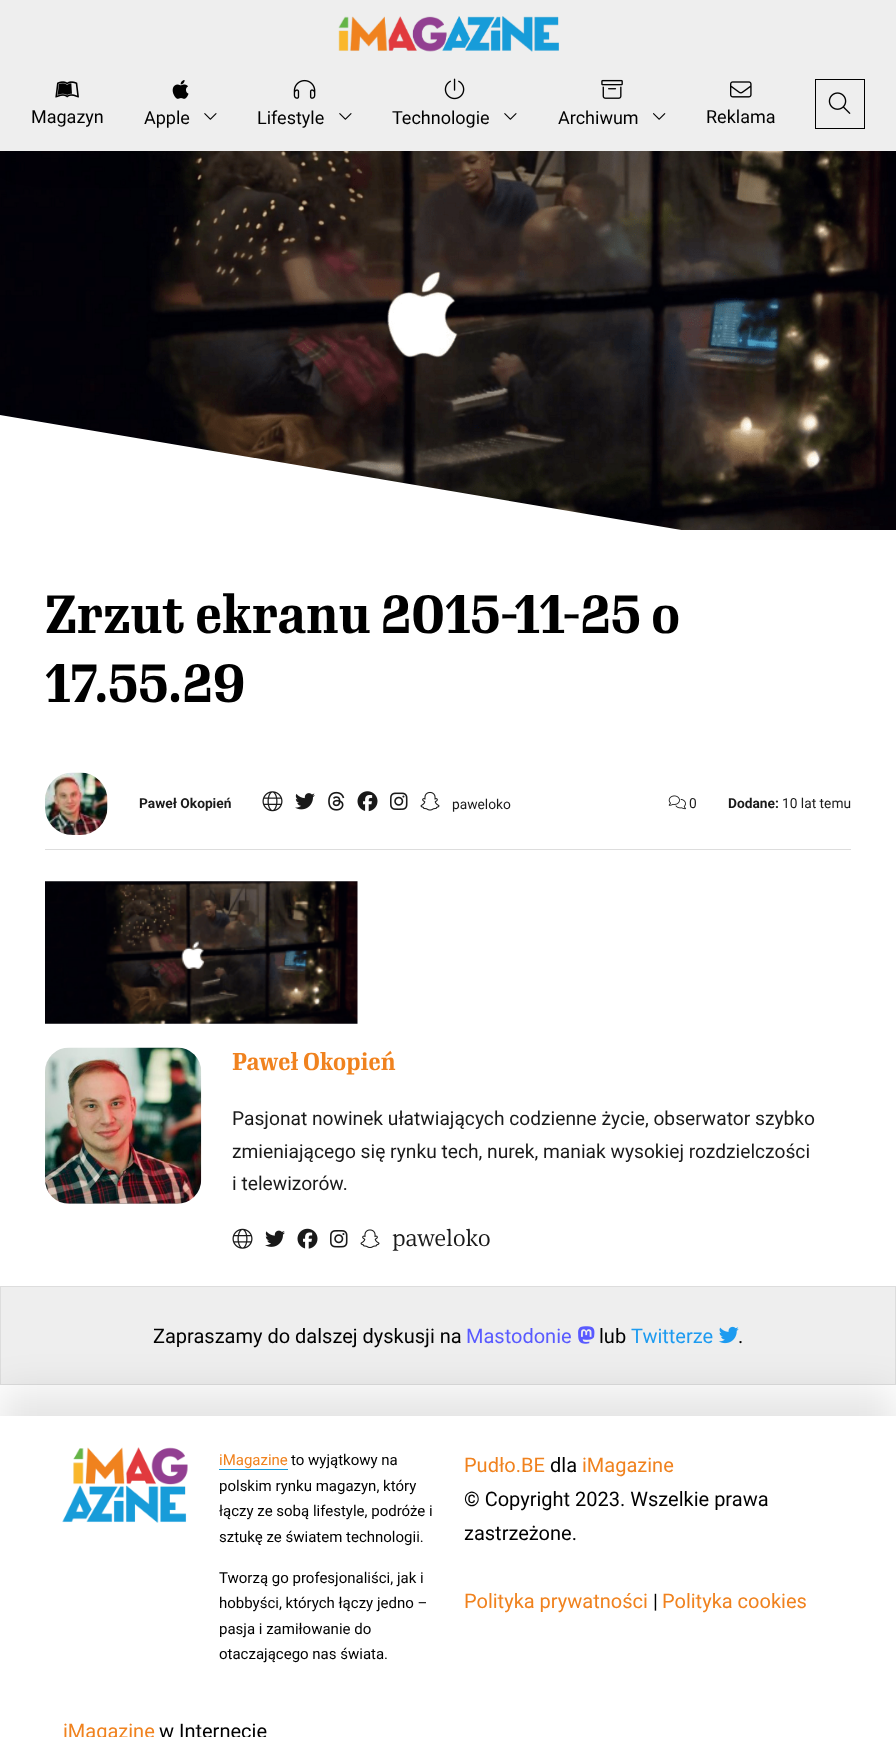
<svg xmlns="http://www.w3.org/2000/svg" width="896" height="1737">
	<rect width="100%" height="100%" fill="#FFFFFF" />
	<image x="0" y="151" width="896" height="379" href="assets/img11.png" />
	<rect x="13" y="25" width="871" height="126" fill="#000000" fill-opacity="0.1" filter="blur(19px)" />
	<rect x="0" y="0" width="896" height="151" fill="#EEEEEE" />
	<image x="338" y="16" width="221" height="36" href="assets/img1.png" />
	<image x="55" y="81" width="24" height="17" href="assets/img2.png" />
	<text x="31" y="123" font-family="Roboto" font-size="18" fill="#000000">Magazyn</text>
	<image x="172" y="80" width="17" height="19" href="assets/img3.png" />
	<text x="144" y="124" font-family="Roboto" font-size="18" fill="#000000">Apple</text>
	<image x="204" y="113" width="13" height="7" href="assets/img4.png" />
	<image x="293" y="79" width="23" height="20" href="assets/img5.png" />
	<text x="257" y="124" font-family="Roboto" font-size="18" fill="#000000">Lifestyle</text>
	<image x="339" y="113" width="13" height="7" href="assets/img4.png" />
	<image x="444" y="78" width="21" height="22" href="assets/img6.png" />
	<text x="392" y="124" font-family="Roboto" font-size="18" fill="#000000">Technologie</text>
	<image x="504" y="113" width="13" height="7" href="assets/img4.png" />
	<image x="601" y="79" width="22" height="20" href="assets/img7.png" />
	<text x="558" y="124" font-family="Roboto" font-size="18" fill="#000000">Archiwum</text>
	<image x="653" y="113" width="13" height="7" href="assets/img8.png" />
	<image x="730" y="81" width="22" height="17" href="assets/img9.png" />
	<text x="706" y="123" font-family="Roboto" font-size="18" fill="#000000">Reklama</text>
	<rect x="815.5" y="79.5" width="49" height="49" fill="none" stroke="#000000" />
	<image x="828" y="92" width="23" height="22" href="assets/img10.png" />
	<path d="M0 415V536H717Z" fill="#FFFFFF" />
	<g font-family="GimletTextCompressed" font-size="52.75" font-weight="700" fill="#000000">
		<text x="45" y="633">Zrzut ekranu 2015-11-25 o</text>
		<text x="45" y="702">17.55.29</text>
	</g>
	<rect x="45" y="849" width="806" height="1" fill="#DDDDDD" />
	<image x="45" y="772" width="63" height="63" href="assets/img12.png" />
	<text x="139" y="808" font-family="Roboto" font-size="13.75" font-weight="700" fill="#1A1A1A">Paweł Okopień</text>
	<image x="262" y="791" width="21" height="21" href="assets/img13.png" />
	<image x="295" y="793" width="20" height="17" href="assets/img14.png" />
	<image x="328" y="791" width="17" height="20" href="assets/img15.png" />
	<image x="357" y="791" width="21" height="21" href="assets/img16.png" />
	<image x="390" y="792" width="18" height="18" href="assets/img17.png" />
	<image x="420" y="791" width="20" height="20" href="assets/img18.png" />
	<text x="452" y="809" font-family="Roboto" font-size="13.75" fill="#1A1A1A">paweloko</text>
	<image x="668" y="795" width="18" height="15" href="assets/img19.png" />
	<text x="689" y="808" font-family="Roboto" font-size="13.75" fill="#1A1A1A">0</text>
	<text x="728" y="808" font-family="Roboto" font-size="13.75" font-weight="700" fill="#1A1A1A">Dodane:</text>
	<text x="782" y="808" font-family="Roboto" font-size="13.75" fill="#1A1A1A">10 lat temu</text>
	<image x="45" y="881" width="313" height="143" href="assets/img20.png" />
	<image x="45" y="1047" width="157" height="157" href="assets/img21.png" />
	<text x="232" y="1070" font-family="GimletTextCompressed" font-size="24" font-weight="700" fill="#F0821E">Paweł Okopień</text>
	<g font-family="Roboto" font-size="19.2" fill="#1A1A1A">
		<text x="232" y="1125">Pasjonat nowinek ułatwiających codzienne życie, obserwator szybko</text>
		<text x="232" y="1158">zmieniającego się rynku tech, nurek, maniak wysokiej rozdzielczości</text>
		<text x="232" y="1190">i telewizorów.</text>
	</g>
	<image x="232" y="1228" width="21" height="21" href="assets/img22.png" />
	<image x="265" y="1230" width="20" height="17" href="assets/img23.png" />
	<image x="297" y="1228" width="21" height="21" href="assets/img24.png" />
	<image x="330" y="1230" width="18" height="18" href="assets/img25.png" />
	<image x="360" y="1229" width="20" height="19" href="assets/img26.png" />
	<text x="392" y="1246" font-family="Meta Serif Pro" font-size="24" font-weight="300" fill="#1A1A1A">paweloko</text>
	<rect x="0.5" y="1286.5" width="895" height="98" fill="#EEEEEE" stroke="#DDDDDD" />
	<rect x="0" y="1391" width="896" height="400" fill="#000000" fill-opacity="0.1" filter="blur(19px)" />
	<text x="153" y="1343" font-family="Roboto" font-size="20" fill="#000000">Zapraszamy do dalszej dyskusji na</text>
	<text x="466" y="1343" font-family="Roboto" font-size="20" fill="#595AFF">Mastodonie</text>
	<image x="578" y="1326" width="17" height="18" href="assets/img27.png" />
	<text x="599" y="1343" font-family="Roboto" font-size="20" fill="#000000">lub</text>
	<text x="631" y="1343" font-family="Roboto" font-size="20" fill="#1D9BF0">Twitterze</text>
	<image x="718" y="1326" width="21" height="18" href="assets/img28.png" />
	<text x="738" y="1343" font-family="Roboto" font-size="20" fill="#000000">.</text>
	<rect x="0" y="1416" width="896" height="321" fill="#FFFFFF" />
	<image x="62" y="1447" width="126" height="76" href="assets/img29.png" />
	<text x="219" y="1465" font-family="Roboto" font-size="15" fill="#F0821E">iMagazine</text>
	<rect x="219" y="1469" width="69" height="1" fill="#179CD9" />
	<g font-family="Roboto" font-size="15" fill="#000000">
		<text x="291" y="1465">to wyjątkowy na</text>
		<text x="219" y="1491">polskim rynku magazyn, który</text>
		<text x="219" y="1516">łączy ze sobą lifestyle, podróże i</text>
		<text x="219" y="1542">sztukę ze światem technologii.</text>
		<text x="219" y="1583">Tworzą go profesjonaliści, jak i</text>
		<text x="219" y="1608">hobbyści, których łączy jedno –</text>
		<text x="219" y="1634">pasja i zamiłowanie do</text>
		<text x="219" y="1659">otaczającego nas świata.</text>
	</g>
	<text x="464" y="1472" font-family="Roboto" font-size="20" fill="#F0821E">Pudło.BE</text>
	<text x="550" y="1472" font-family="Roboto" font-size="20" fill="#000000">dla</text>
	<text x="582" y="1472" font-family="Roboto" font-size="20" fill="#F0821E">iMagazine</text>
	<g font-family="Roboto" font-size="20" fill="#000000">
		<text x="464" y="1506">© Copyright 2023. Wszelkie prawa</text>
		<text x="464" y="1540">zastrzeżone.</text>
	</g>
	<text x="464" y="1608" font-family="Roboto" font-size="20" fill="#F0821E">Polityka prywatności</text>
	<text x="653" y="1608" font-family="Roboto" font-size="20" fill="#000000">|</text>
	<g font-family="Roboto" font-size="20" fill="#F0821E">
		<text x="662" y="1608">Polityka cookies</text>
		<text x="63" y="1738">iMagazine</text>
	</g>
	<text x="159" y="1738" font-family="Roboto" font-size="20" fill="#000000">w Internecie</text>
</svg>
